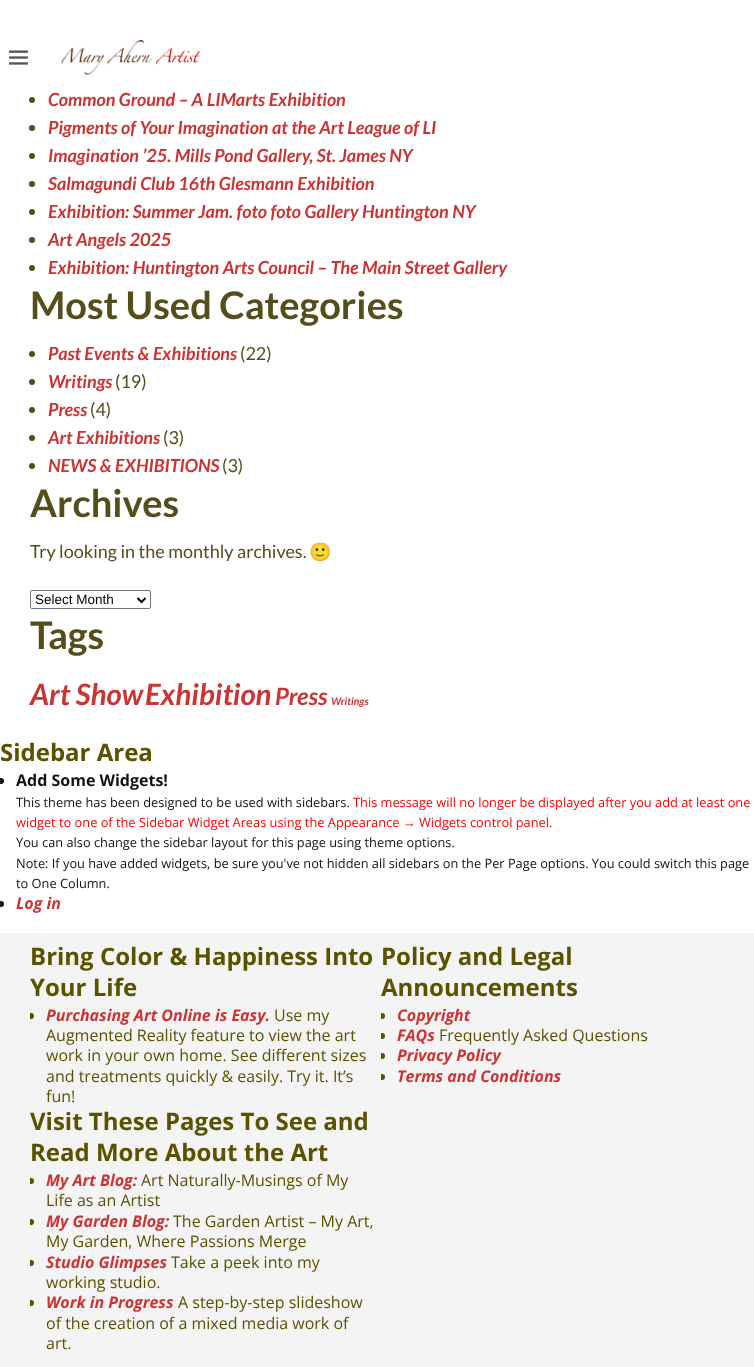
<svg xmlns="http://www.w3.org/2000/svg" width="754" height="1367">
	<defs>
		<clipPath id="clip1"><rect x="30" y="941" width="345" height="165" /></clipPath>
		<clipPath id="clip2"><rect x="381" y="941" width="345" height="145" /></clipPath>
		<clipPath id="clip3"><rect x="30" y="1106" width="345" height="248" /></clipPath>
	</defs>
	<rect width="100%" height="100%" fill="#FFFFFF" />
	<image x="9" y="50" width="19" height="15" href="assets/img1.png" />
	<image x="61" y="40" width="140" height="35" href="assets/img2.png" />
	<circle cx="32" cy="100" r="3" fill="#554D1A" />
	<text x="48" y="106" font-family="Lato" font-size="18" font-weight="700" font-style="italic" fill="#CC3333">Common Ground – A LIMarts Exhibition</text>
	<circle cx="32" cy="128" r="3" fill="#554D1A" />
	<text x="48" y="134" font-family="Lato" font-size="18" font-weight="700" font-style="italic" fill="#CC3333">Pigments of Your Imagination at the Art League of LI</text>
	<circle cx="32" cy="156" r="3" fill="#554D1A" />
	<text x="48" y="162" font-family="Lato" font-size="18" font-weight="700" font-style="italic" fill="#CC3333">Imagination ’25. Mills Pond Gallery, St. James NY</text>
	<circle cx="32" cy="184" r="3" fill="#554D1A" />
	<text x="48" y="190" font-family="Lato" font-size="18" font-weight="700" font-style="italic" fill="#CC3333">Salmagundi Club 16th Glesmann Exhibition</text>
	<circle cx="32" cy="212" r="3" fill="#554D1A" />
	<text x="48" y="218" font-family="Lato" font-size="18" font-weight="700" font-style="italic" fill="#CC3333">Exhibition: Summer Jam. foto foto Gallery Huntington NY</text>
	<circle cx="32" cy="240" r="3" fill="#554D1A" />
	<text x="48" y="246" font-family="Lato" font-size="18" font-weight="700" font-style="italic" fill="#CC3333">Art Angels 2025</text>
	<circle cx="32" cy="268" r="3" fill="#554D1A" />
	<text x="48" y="274" font-family="Lato" font-size="18" font-weight="700" font-style="italic" fill="#CC3333">Exhibition: Huntington Arts Council – The Main Street Gallery</text>
	<text x="30" y="319" font-family="Lato" font-size="38" font-weight="700" fill="#554D1A">Most Used Categories</text>
	<circle cx="32" cy="354" r="3" fill="#554D1A" />
	<text x="48" y="360" font-family="Lato" font-size="18" font-weight="700" font-style="italic" fill="#CC3333">Past Events &amp; Exhibitions</text>
	<text x="240" y="360" font-family="Lato" font-size="18" fill="#554D1A">(22)</text>
	<circle cx="32" cy="382" r="3" fill="#554D1A" />
	<text x="48" y="388" font-family="Lato" font-size="18" font-weight="700" font-style="italic" fill="#CC3333">Writings</text>
	<text x="115" y="388" font-family="Lato" font-size="18" fill="#554D1A">(19)</text>
	<circle cx="32" cy="410" r="3" fill="#554D1A" />
	<text x="48" y="416" font-family="Lato" font-size="18" font-weight="700" font-style="italic" fill="#CC3333">Press</text>
	<text x="90" y="416" font-family="Lato" font-size="18" fill="#554D1A">(4)</text>
	<circle cx="32" cy="438" r="3" fill="#554D1A" />
	<text x="48" y="444" font-family="Lato" font-size="18" font-weight="700" font-style="italic" fill="#CC3333">Art Exhibitions</text>
	<text x="163" y="444" font-family="Lato" font-size="18" fill="#554D1A">(3)</text>
	<circle cx="32" cy="466" r="3" fill="#554D1A" />
	<text x="48" y="472" font-family="Lato" font-size="18" font-weight="700" font-style="italic" fill="#CC3333">NEWS &amp; EXHIBITIONS</text>
	<text x="222" y="472" font-family="Lato" font-size="18" fill="#554D1A">(3)</text>
	<text x="30" y="517" font-family="Lato" font-size="38" font-weight="700" fill="#554D1A">Archives</text>
	<text x="30" y="558" font-family="Lato" font-size="18" fill="#554D1A">Try looking in the monthly archives.</text>
	<text x="309" y="558" font-family="Noto Color Emoji" font-size="18" fill="#554D1A">🙂</text>
	<rect x="30.5" y="590.5" width="120" height="18" rx="1.5" fill="none" stroke="#767676" />
	<path d="M137.5 598L141.5 602L145.5 598" fill="none" stroke="#000000" stroke-width="2" />
	<text x="35" y="604" font-family="Liberation Sans" font-size="13.5" fill="#000000">Select Month</text>
	<text x="30" y="649" font-family="Lato" font-size="38" font-weight="700" fill="#554D1A">Tags</text>
	<g font-family="Lato" font-size="29.5" font-weight="700" font-style="italic" fill="#CC3333">
		<text x="30" y="705">Art Show</text>
		<text x="145" y="705">Exhibition</text>
	</g>
	<text x="275" y="705" font-family="Lato" font-size="24" font-weight="700" font-style="italic" fill="#CC3333">Press</text>
	<text x="331" y="705" font-family="Lato" font-size="10.5" font-weight="700" font-style="italic" fill="#CC3333">Writings</text>
	<text x="0" y="761" font-family="Open Sans" font-size="24" font-weight="700" fill="#5B5200">Sidebar Area</text>
	<circle cx="1" cy="781" r="3" fill="#121212" />
	<text x="16" y="786" font-family="Open Sans" font-size="16" font-weight="700" fill="#121212">Add Some Widgets!</text>
	<text x="16" y="807" font-family="Open Sans" font-size="12.8" fill="#121212">This theme has been designed to be used with sidebars.</text>
	<g font-family="Open Sans" font-size="12.8" fill="#FF0000">
		<text x="353" y="807">This message will no longer be displayed after you add at least one</text>
		<text x="16" y="827">widget to one of the Sidebar Widget Areas using the Appearance</text>
	</g>
	<text x="403" y="827" font-family="Liberation Sans" font-size="12.8" fill="#FF0000">→</text>
	<text x="419" y="827" font-family="Open Sans" font-size="12.8" fill="#FF0000">Widgets control panel.</text>
	<g font-family="Open Sans" font-size="12.8" fill="#121212">
		<text x="16" y="847">You can also change the sidebar layout for this page using theme options.</text>
		<text x="16" y="868">Note: If you have added widgets, be sure you've not hidden all sidebars on the Per Page options. You could switch this page</text>
		<text x="16" y="888">to One Column.</text>
	</g>
	<circle cx="1" cy="904" r="3" fill="#121212" />
	<text x="16" y="909" font-family="Open Sans" font-size="16" font-weight="700" font-style="italic" fill="#CC3333">Log in</text>
	<rect x="0" y="933" width="754" height="434" fill="#F4F4F4" />
	<g font-family="Open Sans" font-size="24" font-weight="700" fill="#5B5200">
		<text x="30" y="965">Bring Color &amp; Happiness Into</text>
		<text x="30" y="996">Your Life</text>
	</g>
	<g clip-path="url(#clip1)">
		<circle cx="31" cy="1016" r="3" fill="#565300" />
	</g>
	<text x="46" y="1021" font-family="Open Sans" font-size="16" font-weight="700" font-style="italic" fill="#CC3333">Purchasing Art Online is Easy.</text>
	<g font-family="Open Sans" font-size="16" fill="#5B5200">
		<text x="274" y="1021">Use my</text>
		<text x="46" y="1041">Augmented Reality feature to view the art</text>
		<text x="46" y="1061">work in your own home. See different sizes</text>
		<text x="46" y="1082">and treatments quickly &amp; easily. Try it. It’s</text>
		<text x="46" y="1102">fun!</text>
	</g>
	<g font-family="Open Sans" font-size="24" font-weight="700" fill="#5B5200">
		<text x="381" y="965">Policy and Legal</text>
		<text x="381" y="996">Announcements</text>
	</g>
	<g clip-path="url(#clip2)">
		<circle cx="382" cy="1016" r="3" fill="#565300" />
	</g>
	<text x="397" y="1021" font-family="Open Sans" font-size="16" font-weight="700" font-style="italic" fill="#CC3333">Copyright</text>
	<g clip-path="url(#clip2)">
		<circle cx="382" cy="1036" r="3" fill="#565300" />
	</g>
	<text x="397" y="1041" font-family="Open Sans" font-size="16" font-weight="700" font-style="italic" fill="#CC3333">FAQs</text>
	<text x="439" y="1041" font-family="Open Sans" font-size="16" fill="#5B5200">Frequently Asked Questions</text>
	<g clip-path="url(#clip2)">
		<circle cx="382" cy="1056" r="3" fill="#565300" />
	</g>
	<text x="397" y="1061" font-family="Open Sans" font-size="16" font-weight="700" font-style="italic" fill="#CC3333">Privacy Policy</text>
	<g clip-path="url(#clip2)">
		<circle cx="382" cy="1077" r="3" fill="#565300" />
	</g>
	<text x="397" y="1082" font-family="Open Sans" font-size="16" font-weight="700" font-style="italic" fill="#CC3333">Terms and Conditions</text>
	<g font-family="Open Sans" font-size="24" font-weight="700" fill="#5B5200">
		<text x="30" y="1130">Visit These Pages To See and</text>
		<text x="30" y="1161">Read More About the Art</text>
	</g>
	<g clip-path="url(#clip3)">
		<circle cx="31" cy="1181" r="3" fill="#565300" />
	</g>
	<text x="46" y="1186" font-family="Open Sans" font-size="16" font-weight="700" font-style="italic" fill="#CC3333">My Art Blog:</text>
	<g font-family="Open Sans" font-size="16" fill="#5B5200">
		<text x="141" y="1186">Art Naturally-Musings of My</text>
		<text x="46" y="1206">Life as an Artist</text>
	</g>
	<g clip-path="url(#clip3)">
		<circle cx="31" cy="1222" r="3" fill="#565300" />
	</g>
	<text x="46" y="1227" font-family="Open Sans" font-size="16" font-weight="700" font-style="italic" fill="#CC3333">My Garden Blog:</text>
	<g font-family="Open Sans" font-size="16" fill="#5B5200">
		<text x="173" y="1227">The Garden Artist – My Art,</text>
		<text x="46" y="1247">My Garden, Where Passions Merge</text>
	</g>
	<g clip-path="url(#clip3)">
		<circle cx="31" cy="1263" r="3" fill="#565300" />
	</g>
	<text x="46" y="1268" font-family="Open Sans" font-size="16" font-weight="700" font-style="italic" fill="#CC3333">Studio Glimpses</text>
	<g font-family="Open Sans" font-size="16" fill="#5B5200">
		<text x="171" y="1268">Take a peek into my</text>
		<text x="46" y="1288">working studio.</text>
	</g>
	<g clip-path="url(#clip3)">
		<circle cx="31" cy="1303" r="3" fill="#565300" />
	</g>
	<text x="46" y="1308" font-family="Open Sans" font-size="16" font-weight="700" font-style="italic" fill="#CC3333">Work in Progress</text>
	<g font-family="Open Sans" font-size="16" fill="#5B5200">
		<text x="178" y="1308">A step-by-step slideshow</text>
		<text x="46" y="1329">of the creation of a mixed media work of</text>
		<text x="46" y="1349">art.</text>
	</g>
</svg>
